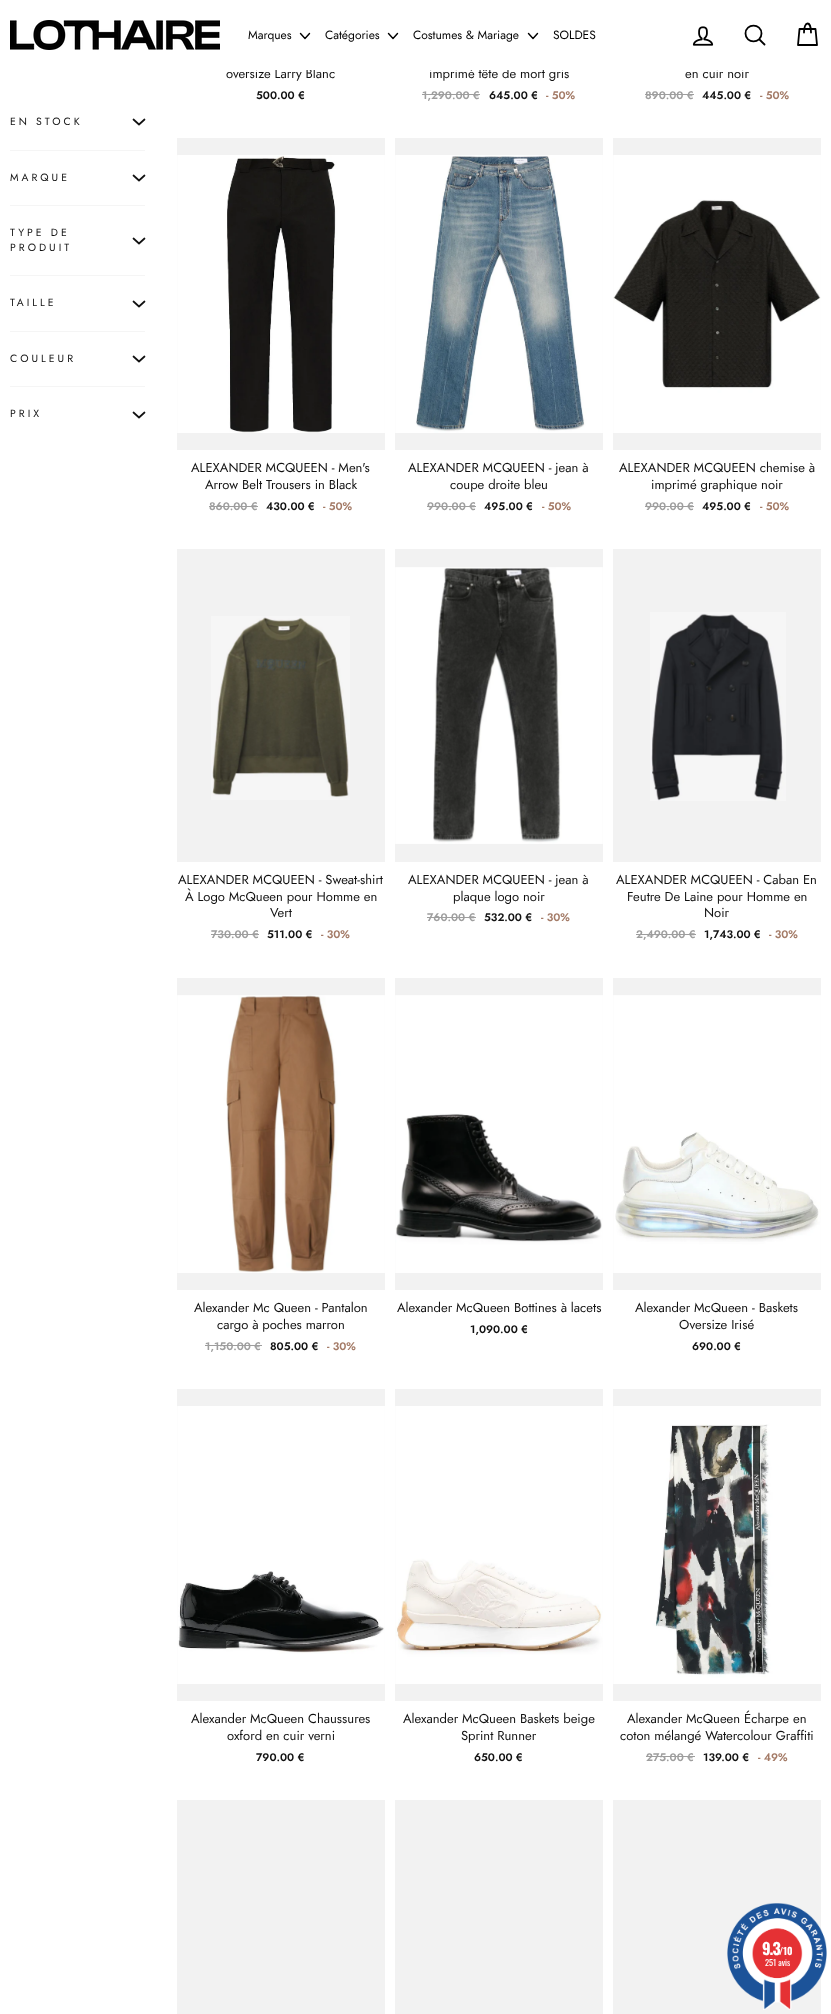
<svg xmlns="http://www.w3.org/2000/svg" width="831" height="2014">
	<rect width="100%" height="100%" fill="#FFFFFF" />
	<rect x="0" y="0" width="831" height="70" fill="#000000" fill-opacity="0.2" filter="blur(0.5px)" />
	<g font-family="Jost" font-size="13" fill="#111111">
		<text x="226" y="78">oversize Larry Blanc</text>
		<text x="429" y="78">imprimé tête de mort gris</text>
		<text x="685" y="78">en cuir noir</text>
	</g>
	<rect x="0" y="0" width="831" height="70" fill="#FFFFFF" />
	<image x="10" y="20" width="210" height="30" href="assets/img1.png" />
	<text x="248" y="39" font-family="Jost" font-size="12" fill="#000000">Marques</text>
	<path d="M300.5 33.5L305 38.5L309.5 33.5" fill="none" stroke="#000000" stroke-width="1.4" stroke-linecap="round" stroke-linejoin="round" />
	<text x="325" y="39" font-family="Jost" font-size="12" fill="#000000">Catégories</text>
	<path d="M388.5 33.5L393 38.5L397.5 33.5" fill="none" stroke="#000000" stroke-width="1.4" stroke-linecap="round" stroke-linejoin="round" />
	<text x="413" y="39" font-family="Jost" font-size="12" fill="#000000">Costumes &amp; Mariage</text>
	<path d="M528.5 33.5L533 38.5L537.5 33.5" fill="none" stroke="#000000" stroke-width="1.4" stroke-linecap="round" stroke-linejoin="round" />
	<text x="553" y="39" font-family="Jost" font-size="12" fill="#000000">SOLDES</text>
	<image x="692" y="26" width="22" height="20" href="assets/img2.png" />
	<path d="M761.5 33.5C761.5 44 745.5 44 745.5 33.5C745.5 23 761.5 23 761.5 33.5ZM764.5 44.5L759.5 39.5" fill="none" stroke="#000000" stroke-width="1.8" stroke-linecap="round" stroke-linejoin="round" />
	<path d="M804 32.5C804 20.5 811 20.5 811 32.5M799.5 29H815.5L817 45H798Z" fill="none" stroke="#000000" stroke-width="1.8" stroke-linecap="round" stroke-linejoin="round" />
	<text x="10" y="125" font-family="Jost" font-size="10.5" letter-spacing="3" fill="#111111">EN STOCK</text>
	<path d="M133.5 119.5L139 124.5L144.5 119.5" fill="none" stroke="#111111" stroke-width="1.7" stroke-linecap="round" stroke-linejoin="round" />
	<rect x="10" y="150" width="135" height="1" fill="#F5F5F5" />
	<text x="10" y="181" font-family="Jost" font-size="10.5" letter-spacing="3" fill="#111111">MARQUE</text>
	<path d="M133.5 175.5L139 180.5L144.5 175.5" fill="none" stroke="#111111" stroke-width="1.7" stroke-linecap="round" stroke-linejoin="round" />
	<rect x="10" y="205" width="135" height="1" fill="#F5F5F5" />
	<text x="10" y="236" font-family="Jost" font-size="10.5" letter-spacing="3" fill="#111111">TYPE DE</text>
	<path d="M133.5 238.5L139 243.5L144.5 238.5" fill="none" stroke="#111111" stroke-width="1.7" stroke-linecap="round" stroke-linejoin="round" />
	<text x="10" y="251" font-family="Jost" font-size="10.5" letter-spacing="3" fill="#111111">PRODUIT</text>
	<rect x="10" y="275" width="135" height="1" fill="#F5F5F5" />
	<text x="10" y="306" font-family="Jost" font-size="10.5" letter-spacing="3" fill="#111111">TAILLE</text>
	<path d="M133.5 301.5L139 306.5L144.5 301.5" fill="none" stroke="#111111" stroke-width="1.7" stroke-linecap="round" stroke-linejoin="round" />
	<rect x="10" y="331" width="135" height="1" fill="#F5F5F5" />
	<text x="10" y="362" font-family="Jost" font-size="10.5" letter-spacing="3" fill="#111111">COULEUR</text>
	<path d="M133.5 356.5L139 361.5L144.5 356.5" fill="none" stroke="#111111" stroke-width="1.7" stroke-linecap="round" stroke-linejoin="round" />
	<rect x="10" y="386" width="135" height="1" fill="#F5F5F5" />
	<text x="10" y="417" font-family="Jost" font-size="10.5" letter-spacing="3" fill="#111111">PRIX</text>
	<path d="M133.5 412.5L139 417.5L144.5 412.5" fill="none" stroke="#111111" stroke-width="1.7" stroke-linecap="round" stroke-linejoin="round" />
	<text x="256" y="99" font-family="Jost" font-size="11" font-weight="600" fill="#111111">500.00 €</text>
	<text x="422" y="99" font-family="Jost" font-size="11" font-weight="600" fill="#9E9E9E">1,290.00 €</text>
	<rect x="422" y="94" width="58" height="1" fill="#9E9E9E" />
	<text x="489" y="99" font-family="Jost" font-size="11" font-weight="600" fill="#111111">645.00 €</text>
	<text x="546" y="99" font-family="Jost" font-size="11" font-weight="600" fill="#A47B67">- 50%</text>
	<text x="645" y="99" font-family="Jost" font-size="11" font-weight="600" fill="#9E9E9E">890.00 €</text>
	<rect x="645" y="94" width="49" height="1" fill="#9E9E9E" />
	<text x="702" y="99" font-family="Jost" font-size="11" font-weight="600" fill="#111111">445.00 €</text>
	<text x="760" y="99" font-family="Jost" font-size="11" font-weight="600" fill="#A47B67">- 50%</text>
	<rect x="177" y="138" width="208" height="312" fill="#F2F2F2" />
	<image x="177" y="155" width="208" height="278" href="assets/img3.png" />
	<g font-family="Jost" font-size="13" fill="#111111">
		<text x="191" y="472">ALEXANDER MCQUEEN - Men's</text>
		<text x="205" y="489">Arrow Belt Trousers in Black</text>
	</g>
	<text x="209" y="510" font-family="Jost" font-size="11" font-weight="600" fill="#9E9E9E">860.00 €</text>
	<rect x="209" y="506" width="49" height="1" fill="#9E9E9E" />
	<text x="266" y="510" font-family="Jost" font-size="11" font-weight="600" fill="#111111">430.00 €</text>
	<text x="323" y="510" font-family="Jost" font-size="11" font-weight="600" fill="#A47B67">- 50%</text>
	<rect x="395" y="138" width="208" height="312" fill="#F2F2F2" />
	<image x="395" y="155" width="208" height="278" href="assets/img4.png" />
	<g font-family="Jost" font-size="13" fill="#111111">
		<text x="408" y="472">ALEXANDER MCQUEEN - jean à</text>
		<text x="450" y="489">coupe droite bleu</text>
	</g>
	<text x="427" y="510" font-family="Jost" font-size="11" font-weight="600" fill="#9E9E9E">990.00 €</text>
	<rect x="427" y="506" width="49" height="1" fill="#9E9E9E" />
	<text x="484" y="510" font-family="Jost" font-size="11" font-weight="600" fill="#111111">495.00 €</text>
	<text x="542" y="510" font-family="Jost" font-size="11" font-weight="600" fill="#A47B67">- 50%</text>
	<rect x="613" y="138" width="208" height="312" fill="#F2F2F2" />
	<image x="613" y="155" width="208" height="278" href="assets/img5.png" />
	<g font-family="Jost" font-size="13" fill="#111111">
		<text x="619" y="472">ALEXANDER MCQUEEN chemise à</text>
		<text x="651" y="489">imprimé graphique noir</text>
	</g>
	<text x="645" y="510" font-family="Jost" font-size="11" font-weight="600" fill="#9E9E9E">990.00 €</text>
	<rect x="645" y="506" width="49" height="1" fill="#9E9E9E" />
	<text x="702" y="510" font-family="Jost" font-size="11" font-weight="600" fill="#111111">495.00 €</text>
	<text x="760" y="510" font-family="Jost" font-size="11" font-weight="600" fill="#A47B67">- 50%</text>
	<rect x="177" y="549" width="208" height="313" fill="#F2F2F2" />
	<image x="211" y="616" width="139" height="184" href="assets/img6.png" />
	<g font-family="Jost" font-size="13" fill="#111111">
		<text x="178" y="884">ALEXANDER MCQUEEN - Sweat-shirt</text>
		<text x="185" y="901">À Logo McQueen pour Homme en</text>
		<text x="270" y="917">Vert</text>
	</g>
	<text x="211" y="938" font-family="Jost" font-size="11" font-weight="600" fill="#9E9E9E">730.00 €</text>
	<rect x="211" y="934" width="48" height="1" fill="#9E9E9E" />
	<text x="267" y="938" font-family="Jost" font-size="11" font-weight="600" fill="#111111">511.00 €</text>
	<text x="321" y="938" font-family="Jost" font-size="11" font-weight="600" fill="#A47B67">- 30%</text>
	<rect x="395" y="549" width="208" height="313" fill="#F2F2F2" />
	<image x="395" y="567" width="208" height="277" href="assets/img7.png" />
	<g font-family="Jost" font-size="13" fill="#111111">
		<text x="408" y="884">ALEXANDER MCQUEEN - jean à</text>
		<text x="453" y="901">plaque logo noir</text>
	</g>
	<text x="427" y="921" font-family="Jost" font-size="11" font-weight="600" fill="#9E9E9E">760.00 €</text>
	<rect x="427" y="917" width="49" height="1" fill="#9E9E9E" />
	<text x="484" y="921" font-family="Jost" font-size="11" font-weight="600" fill="#111111">532.00 €</text>
	<text x="541" y="921" font-family="Jost" font-size="11" font-weight="600" fill="#A47B67">- 30%</text>
	<rect x="613" y="549" width="208" height="313" fill="#F2F2F2" />
	<image x="650" y="612" width="136" height="189" href="assets/img8.png" />
	<g font-family="Jost" font-size="13" fill="#111111">
		<text x="616" y="884">ALEXANDER MCQUEEN - Caban En</text>
		<text x="627" y="901">Feutre De Laine pour Homme en</text>
		<text x="704" y="917">Noir</text>
	</g>
	<text x="636" y="938" font-family="Jost" font-size="11" font-weight="600" fill="#9E9E9E">2,490.00 €</text>
	<rect x="636" y="934" width="60" height="1" fill="#9E9E9E" />
	<text x="704" y="938" font-family="Jost" font-size="11" font-weight="600" fill="#111111">1,743.00 €</text>
	<text x="769" y="938" font-family="Jost" font-size="11" font-weight="600" fill="#A47B67">- 30%</text>
	<rect x="177" y="978" width="208" height="312" fill="#F2F2F2" />
	<image x="177" y="995" width="208" height="278" href="assets/img9.png" />
	<g font-family="Jost" font-size="13" fill="#111111">
		<text x="194" y="1312">Alexander Mc Queen - Pantalon</text>
		<text x="217" y="1329">cargo à poches marron</text>
	</g>
	<text x="205" y="1350" font-family="Jost" font-size="11" font-weight="600" fill="#9E9E9E">1,150.00 €</text>
	<rect x="205" y="1345" width="57" height="1" fill="#9E9E9E" />
	<text x="270" y="1350" font-family="Jost" font-size="11" font-weight="600" fill="#111111">805.00 €</text>
	<text x="327" y="1350" font-family="Jost" font-size="11" font-weight="600" fill="#A47B67">- 30%</text>
	<rect x="395" y="978" width="208" height="312" fill="#F2F2F2" />
	<image x="395" y="995" width="208" height="278" href="assets/img10.png" />
	<text x="397" y="1312" font-family="Jost" font-size="13" fill="#111111">Alexander McQueen Bottines à lacets</text>
	<text x="470" y="1333" font-family="Jost" font-size="11" font-weight="600" fill="#111111">1,090.00 €</text>
	<rect x="613" y="978" width="208" height="312" fill="#F2F2F2" />
	<image x="613" y="995" width="208" height="278" href="assets/img11.png" />
	<g font-family="Jost" font-size="13" fill="#111111">
		<text x="635" y="1312">Alexander McQueen - Baskets</text>
		<text x="679" y="1329">Oversize Irisé</text>
	</g>
	<text x="692" y="1350" font-family="Jost" font-size="11" font-weight="600" fill="#111111">690.00 €</text>
	<rect x="177" y="1389" width="208" height="312" fill="#F2F2F2" />
	<image x="177" y="1406" width="208" height="278" href="assets/img12.png" />
	<g font-family="Jost" font-size="13" fill="#111111">
		<text x="191" y="1723">Alexander McQueen Chaussures</text>
		<text x="227" y="1740">oxford en cuir verni</text>
	</g>
	<text x="256" y="1761" font-family="Jost" font-size="11" font-weight="600" fill="#111111">790.00 €</text>
	<rect x="395" y="1389" width="208" height="312" fill="#F2F2F2" />
	<image x="395" y="1406" width="208" height="278" href="assets/img13.png" />
	<g font-family="Jost" font-size="13" fill="#111111">
		<text x="403" y="1723">Alexander McQueen Baskets beige</text>
		<text x="461" y="1740">Sprint Runner</text>
	</g>
	<text x="474" y="1761" font-family="Jost" font-size="11" font-weight="600" fill="#111111">650.00 €</text>
	<rect x="613" y="1389" width="208" height="312" fill="#F2F2F2" />
	<image x="613" y="1406" width="208" height="278" href="assets/img14.png" />
	<g font-family="Jost" font-size="13" fill="#111111">
		<text x="627" y="1723">Alexander McQueen Écharpe en</text>
		<text x="620" y="1740">coton mélangé Watercolour Graffiti</text>
	</g>
	<text x="646" y="1761" font-family="Jost" font-size="11" font-weight="600" fill="#9E9E9E">275.00 €</text>
	<rect x="646" y="1756" width="49" height="1" fill="#9E9E9E" />
	<text x="703" y="1761" font-family="Jost" font-size="11" font-weight="600" fill="#111111">139.00 €</text>
	<text x="758" y="1761" font-family="Jost" font-size="11" font-weight="600" fill="#A47B67">- 49%</text>
	<rect x="177" y="1800" width="208" height="214" fill="#F2F2F2" />
	<rect x="395" y="1800" width="208" height="214" fill="#F2F2F2" />
	<rect x="613" y="1800" width="208" height="214" fill="#F2F2F2" />
	<image x="727" y="1903" width="100" height="107" href="assets/img15.png" />
	<text x="762" y="1955" font-family="Oswald" font-size="16" font-weight="700" letter-spacing="-1" fill="#FFFFFF">9.3</text>
	<text x="779" y="1955" font-family="Oswald" font-size="10" font-weight="700" fill="#FFFFFF">/10</text>
	<text x="765" y="1966" font-family="Oswald" font-size="8.5" fill="#FFFFFF">251 avis</text>
</svg>
